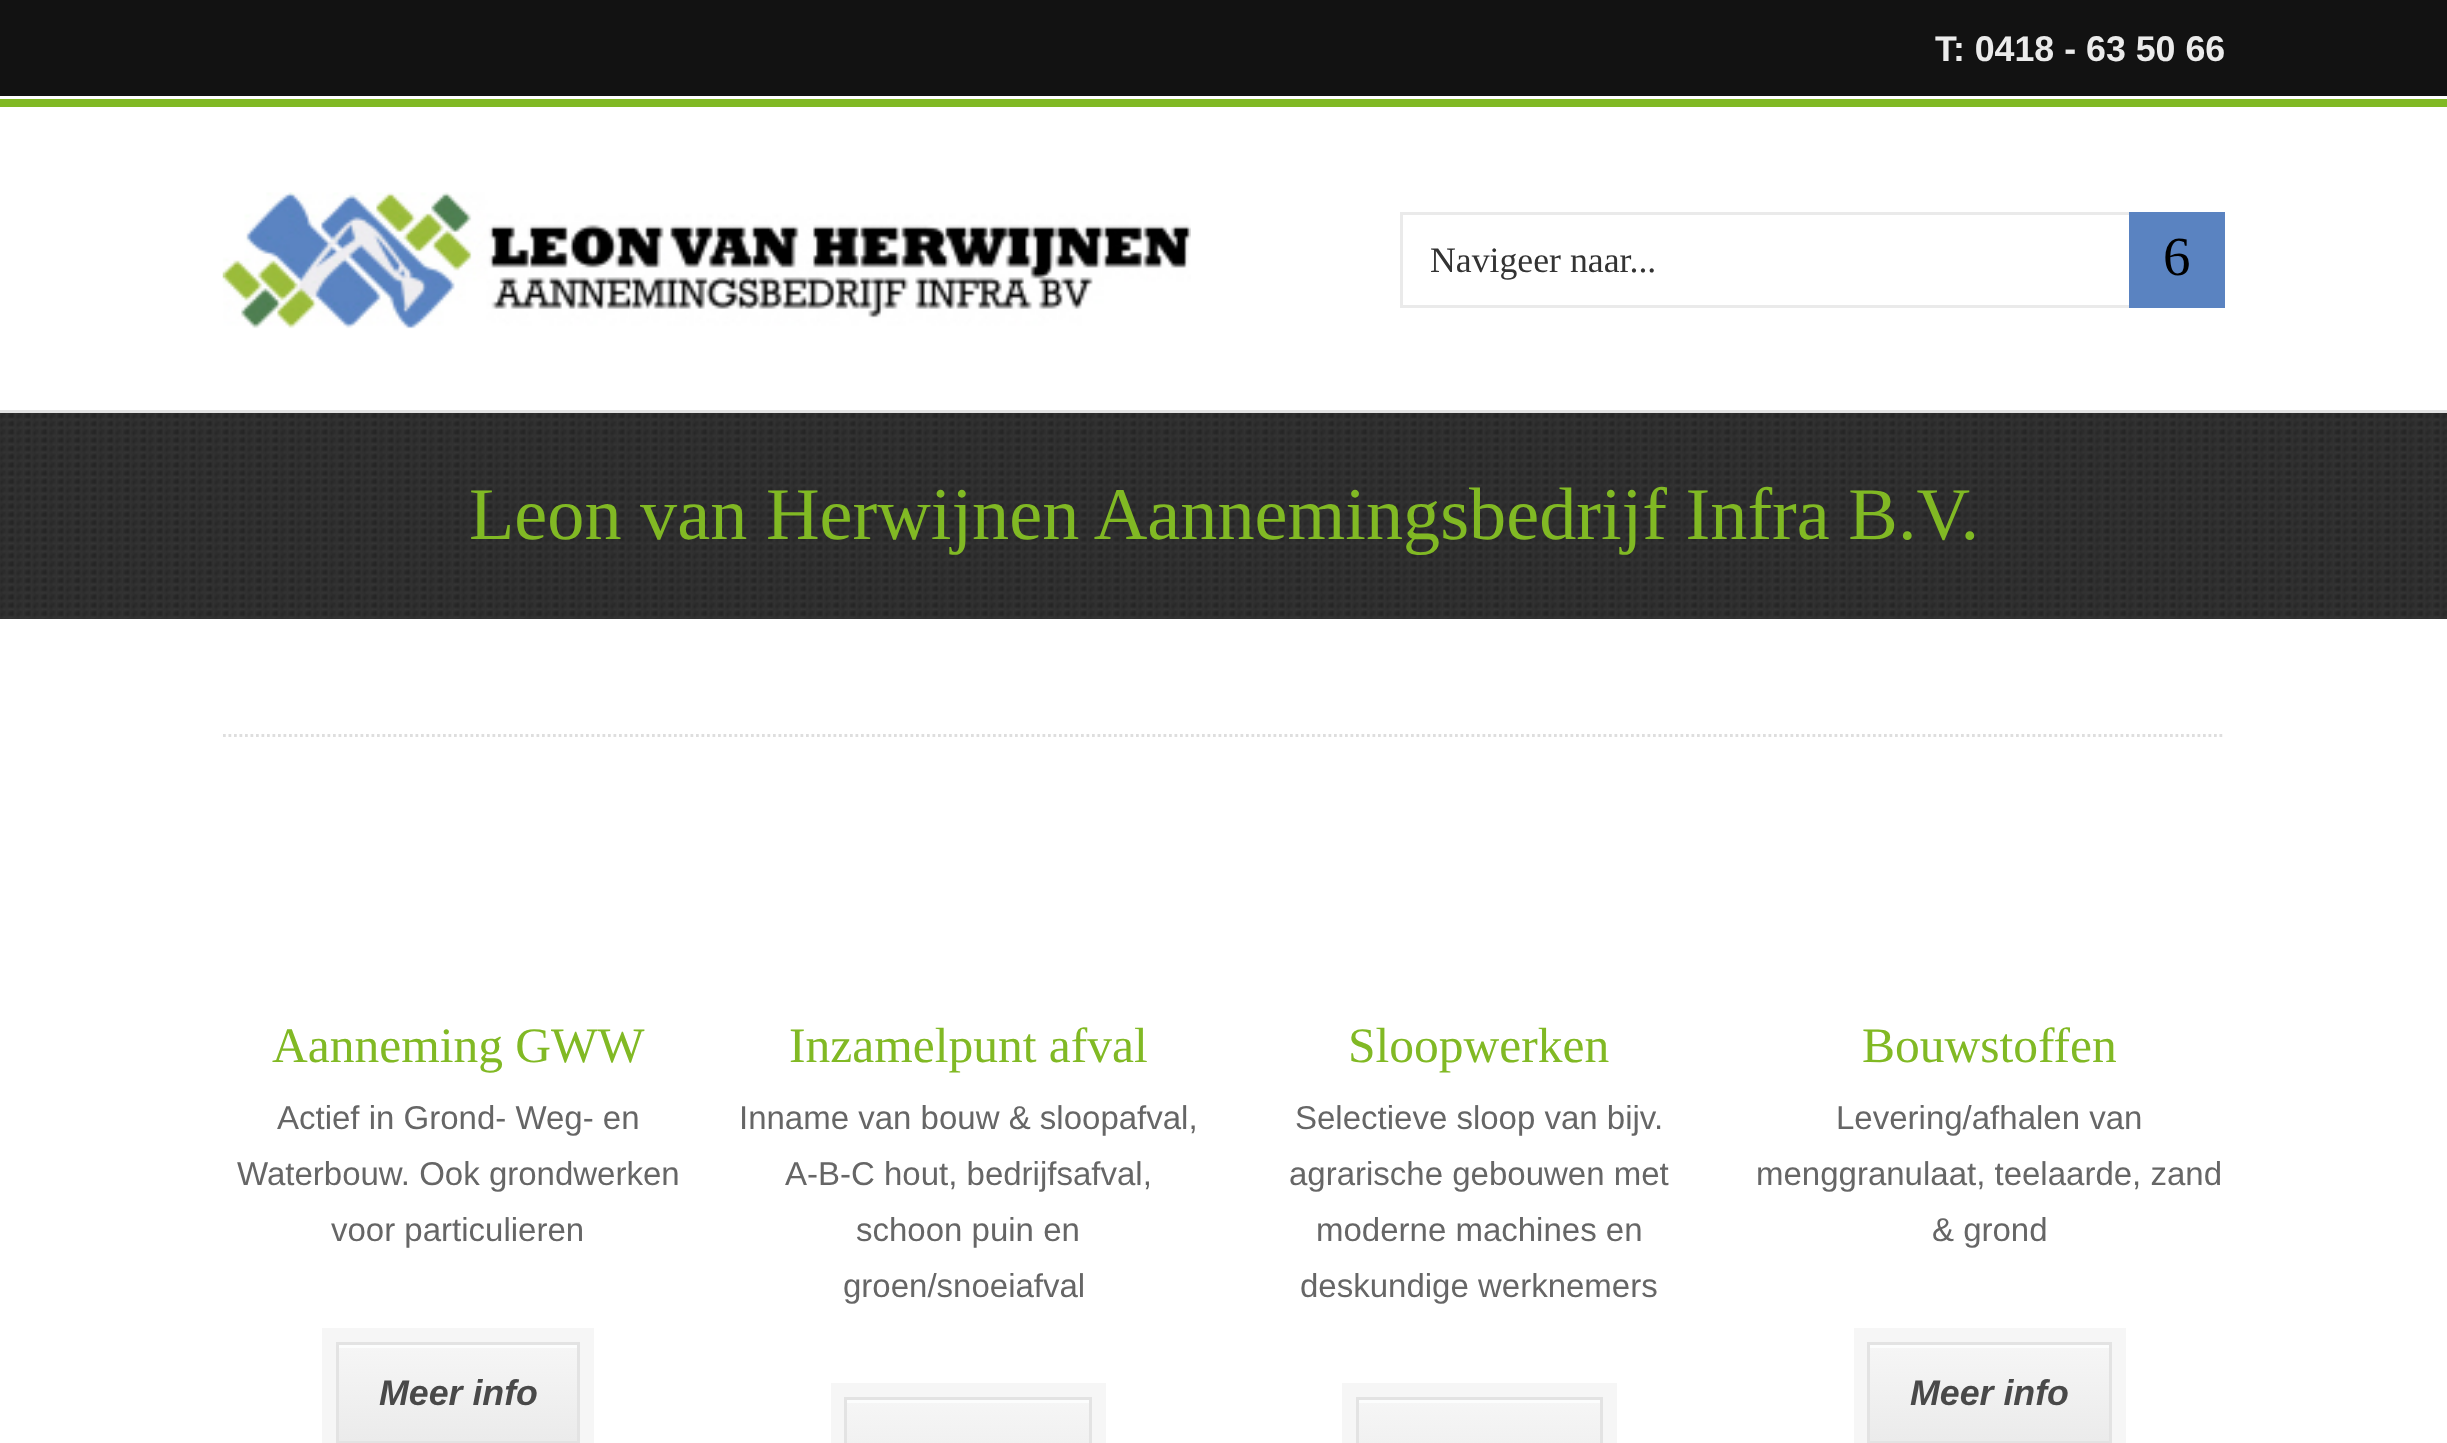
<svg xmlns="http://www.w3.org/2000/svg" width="2447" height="1443">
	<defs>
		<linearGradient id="g1" gradientUnits="userSpaceOnUse" x1="458" y1="1441" x2="458" y2="1345"><stop offset="0" stop-color="#EBEBEB" /><stop offset="1" stop-color="#F6F6F6" /></linearGradient>
		<linearGradient id="g2" gradientUnits="userSpaceOnUse" x1="968" y1="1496" x2="968" y2="1400"><stop offset="0" stop-color="#EBEBEB" /><stop offset="1" stop-color="#F6F6F6" /></linearGradient>
		<linearGradient id="g3" gradientUnits="userSpaceOnUse" x1="1480" y1="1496" x2="1480" y2="1400"><stop offset="0" stop-color="#EBEBEB" /><stop offset="1" stop-color="#F6F6F6" /></linearGradient>
		<linearGradient id="g4" gradientUnits="userSpaceOnUse" x1="1990" y1="1441" x2="1990" y2="1345"><stop offset="0" stop-color="#EBEBEB" /><stop offset="1" stop-color="#F6F6F6" /></linearGradient>
	</defs>
	<rect width="100%" height="100%" fill="#FFFFFF" />
	<rect x="0" y="0" width="2447" height="96" fill="#121212" />
	<text x="1935" y="61" font-family="Liberation Sans" font-size="35.75" font-weight="700" fill="#EBEBEB">T: 0418 - 63 50 66</text>
	<rect x="0" y="99" width="2447" height="8" fill="#81B924" />
	<image x="222" y="192" width="969" height="137" href="assets/img1.png" />
	<rect x="1401.5" y="213.5" width="822" height="93" fill="none" stroke="#EAEAEA" stroke-width="3" />
	<text x="1430" y="272" font-family="Liberation Serif" font-size="35.75" fill="#333333">Navigeer naar...</text>
	<rect x="2129" y="212" width="96" height="96" fill="#5A83C1" />
	<text x="2163" y="275" font-family="Liberation Serif" font-size="55" fill="#000000">6</text>
	<rect x="0" y="410" width="2447" height="3" fill="#E2E2E2" />
	<image x="0" y="413" width="2447" height="206" href="assets/img2.png" />
	<text x="469" y="539" font-family="Liberation Serif" font-size="74.25" fill="#81B924">Leon van Herwijnen Aannemingsbedrijf Infra B.V.</text>
	<path d="M223 735.5H2225" fill="none" stroke="#DEDEDE" stroke-width="2.8" stroke-dasharray="2.75 2.75" />
	<text x="272" y="1062" font-family="Liberation Serif" font-size="49.5" fill="#81B924">Aanneming GWW</text>
	<g font-family="Liberation Sans" font-size="33" fill="#666666">
		<text x="277" y="1129">Actief in Grond- Weg- en</text>
		<text x="237" y="1185">Waterbouw. Ook grondwerken</text>
		<text x="331" y="1241">voor particulieren</text>
	</g>
	<rect x="329" y="1335" width="258" height="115" fill="none" stroke="#F6F6F6" stroke-width="14" />
	<rect x="339" y="1348" width="238" height="93" fill="url(#g1)" />
	<rect x="338" y="1345" width="240" height="3" fill="#FCFDFD" />
	<rect x="337.5" y="1343.5" width="241" height="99" fill="none" stroke="#E3E3E3" stroke-width="3" />
	<text x="379" y="1405" font-family="Liberation Sans" font-size="35.75" font-weight="700" font-style="italic" fill="#494949">Meer info</text>
	<text x="789" y="1062" font-family="Liberation Serif" font-size="49.5" fill="#81B924">Inzamelpunt afval</text>
	<g font-family="Liberation Sans" font-size="33" fill="#666666">
		<text x="739" y="1129">Inname van bouw &amp; sloopafval,</text>
		<text x="785" y="1185">A-B-C hout, bedrijfsafval,</text>
		<text x="856" y="1241">schoon puin en</text>
		<text x="843" y="1297">groen/snoeiafval</text>
	</g>
	<rect x="838" y="1390" width="261" height="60" fill="none" stroke="#F6F6F6" stroke-width="14" />
	<rect x="847" y="1403" width="242" height="40" fill="url(#g2)" />
	<rect x="847" y="1400" width="242" height="3" fill="#FCFDFD" />
	<rect x="845.5" y="1398.5" width="245" height="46" fill="none" stroke="#E3E3E3" stroke-width="3" />
	<text x="1348" y="1062" font-family="Liberation Serif" font-size="49.5" fill="#81B924">Sloopwerken</text>
	<g font-family="Liberation Sans" font-size="33" fill="#666666">
		<text x="1295" y="1129">Selectieve sloop van bijv.</text>
		<text x="1289" y="1185">agrarische gebouwen met</text>
		<text x="1316" y="1241">moderne machines en</text>
		<text x="1300" y="1297">deskundige werknemers</text>
	</g>
	<rect x="1349" y="1390" width="261" height="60" fill="none" stroke="#F6F6F6" stroke-width="14" />
	<rect x="1359" y="1403" width="241" height="40" fill="url(#g3)" />
	<rect x="1359" y="1400" width="242" height="3" fill="#FCFDFD" />
	<rect x="1357.5" y="1398.5" width="244" height="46" fill="none" stroke="#E3E3E3" stroke-width="3" />
	<text x="1862" y="1062" font-family="Liberation Serif" font-size="49.5" fill="#81B924">Bouwstoffen</text>
	<g font-family="Liberation Sans" font-size="33" fill="#666666">
		<text x="1836" y="1129">Levering/afhalen van</text>
		<text x="1756" y="1185">menggranulaat, teelaarde, zand</text>
		<text x="1932" y="1241">&amp; grond</text>
	</g>
	<rect x="1861" y="1335" width="258" height="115" fill="none" stroke="#F6F6F6" stroke-width="14" />
	<rect x="1870" y="1348" width="239" height="93" fill="url(#g4)" />
	<rect x="1870" y="1345" width="239" height="3" fill="#FCFDFD" />
	<rect x="1868.5" y="1343.5" width="242" height="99" fill="none" stroke="#E3E3E3" stroke-width="3" />
	<text x="1910" y="1405" font-family="Liberation Sans" font-size="35.75" font-weight="700" font-style="italic" fill="#494949">Meer info</text>
</svg>
